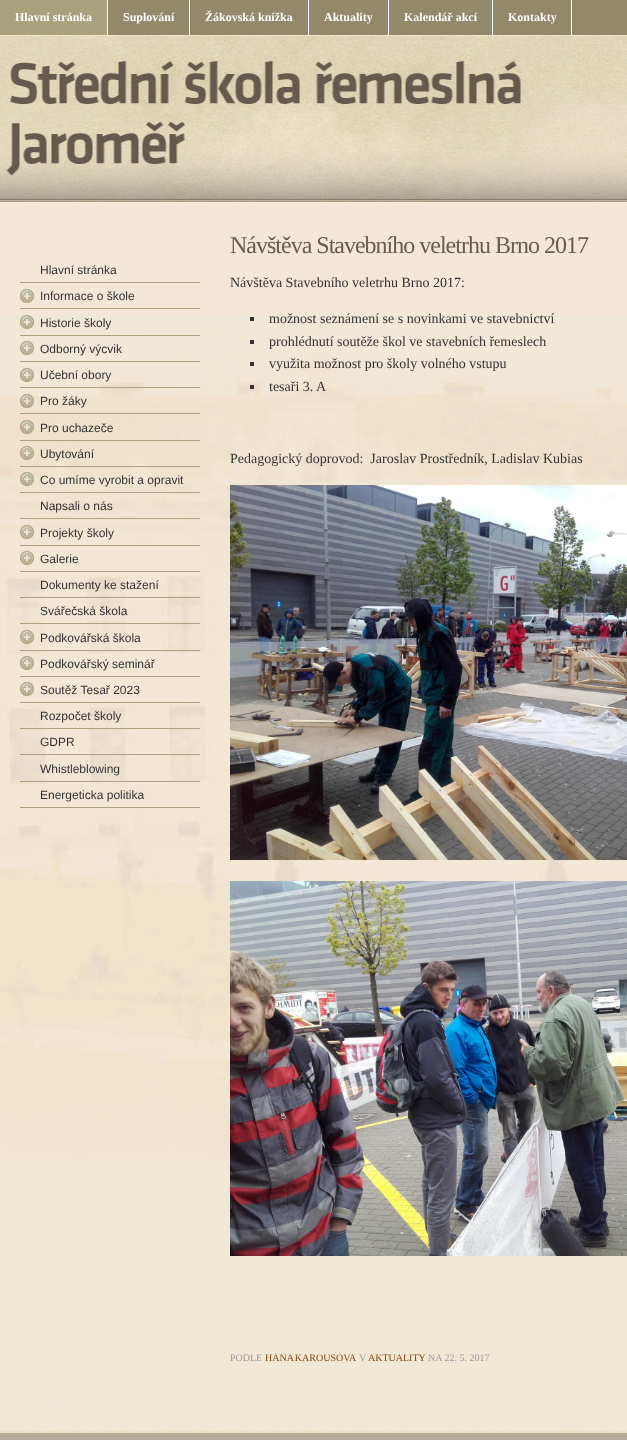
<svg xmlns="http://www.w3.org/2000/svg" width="627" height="1440">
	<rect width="100%" height="100%" fill="#FFFFFF" />
	<image x="0" y="1160" width="627" height="271" href="assets/img1.png" />
	<image x="0" y="202" width="627" height="958" href="assets/img2.png" />
	<rect x="108" y="0" width="519" height="35" fill="#92886C" />
	<rect x="0" y="0" width="107" height="35" fill="#A8A17E" />
	<text x="15" y="21" font-family="Liberation Serif" font-size="12" font-weight="700" fill="#FFFFFF">Hlavní stránka</text>
	<rect x="189" y="0" width="1" height="35" fill="#FFFFFF" />
	<text x="123" y="21" font-family="Liberation Serif" font-size="12" font-weight="700" fill="#FFFFFF">Suplování</text>
	<rect x="308" y="0" width="1" height="35" fill="#FFFFFF" />
	<text x="205" y="21" font-family="Liberation Serif" font-size="12" font-weight="700" fill="#FFFFFF">Žákovská knížka</text>
	<rect x="388" y="0" width="1" height="35" fill="#FFFFFF" />
	<text x="324" y="21" font-family="Liberation Serif" font-size="12" font-weight="700" fill="#FFFFFF">Aktuality</text>
	<rect x="492" y="0" width="1" height="35" fill="#FFFFFF" />
	<text x="404" y="21" font-family="Liberation Serif" font-size="12" font-weight="700" fill="#FFFFFF">Kalendář akcí</text>
	<rect x="571" y="0" width="1" height="35" fill="#FFFFFF" />
	<text x="508" y="21" font-family="Liberation Serif" font-size="12" font-weight="700" fill="#FFFFFF">Kontakty</text>
	<image x="0" y="35" width="627" height="166" href="assets/img3.png" />
	<rect x="0" y="201" width="627" height="1" fill="#A8A17E" />
	<text x="230" y="253" font-family="Liberation Serif" font-size="24" letter-spacing="-1" fill="#665D4E">Návštěva Stavebního veletrhu Brno 2017</text>
	<rect x="20" y="282" width="180" height="1" fill="#A8A17E" />
	<text x="40" y="274" font-family="Arimo" font-size="12" fill="#333333">Hlavní stránka</text>
	<image x="20" y="289" width="14" height="14" href="assets/img4.png" />
	<rect x="20" y="308" width="180" height="1" fill="#A8A17E" />
	<text x="40" y="300" font-family="Arimo" font-size="12" fill="#333333">Informace o škole</text>
	<image x="20" y="315" width="14" height="14" href="assets/img5.png" />
	<rect x="20" y="335" width="180" height="1" fill="#A8A17E" />
	<text x="40" y="327" font-family="Arimo" font-size="12" fill="#333333">Historie školy</text>
	<image x="20" y="341" width="14" height="14" href="assets/img6.png" />
	<rect x="20" y="361" width="180" height="1" fill="#A8A17E" />
	<text x="40" y="353" font-family="Arimo" font-size="12" fill="#333333">Odborný výcvik</text>
	<image x="20" y="368" width="14" height="14" href="assets/img7.png" />
	<rect x="20" y="387" width="180" height="1" fill="#A8A17E" />
	<text x="40" y="379" font-family="Arimo" font-size="12" fill="#333333">Učební obory</text>
	<image x="20" y="394" width="14" height="14" href="assets/img8.png" />
	<rect x="20" y="413" width="180" height="1" fill="#A8A17E" />
	<text x="40" y="405" font-family="Arimo" font-size="12" fill="#333333">Pro žáky</text>
	<image x="20" y="420" width="14" height="14" href="assets/img9.png" />
	<rect x="20" y="440" width="180" height="1" fill="#A8A17E" />
	<text x="40" y="432" font-family="Arimo" font-size="12" fill="#333333">Pro uchazeče</text>
	<image x="20" y="446" width="14" height="14" href="assets/img10.png" />
	<rect x="20" y="466" width="180" height="1" fill="#A8A17E" />
	<text x="40" y="458" font-family="Arimo" font-size="12" fill="#333333">Ubytování</text>
	<image x="20" y="472" width="14" height="14" href="assets/img11.png" />
	<rect x="20" y="492" width="180" height="1" fill="#A8A17E" />
	<text x="40" y="484" font-family="Arimo" font-size="12" fill="#333333">Co umíme vyrobit a opravit</text>
	<rect x="20" y="518" width="180" height="1" fill="#A8A17E" />
	<text x="40" y="510" font-family="Arimo" font-size="12" fill="#333333">Napsali o nás</text>
	<image x="20" y="525" width="14" height="14" href="assets/img12.png" />
	<rect x="20" y="545" width="180" height="1" fill="#A8A17E" />
	<text x="40" y="537" font-family="Arimo" font-size="12" fill="#333333">Projekty školy</text>
	<image x="20" y="551" width="14" height="14" href="assets/img13.png" />
	<rect x="20" y="571" width="180" height="1" fill="#A8A17E" />
	<text x="40" y="563" font-family="Arimo" font-size="12" fill="#333333">Galerie</text>
	<rect x="20" y="597" width="180" height="1" fill="#A8A17E" />
	<text x="40" y="589" font-family="Arimo" font-size="12" fill="#333333">Dokumenty ke stažení</text>
	<rect x="20" y="623" width="180" height="1" fill="#A8A17E" />
	<text x="40" y="615" font-family="Arimo" font-size="12" fill="#333333">Svářečská škola</text>
	<image x="20" y="630" width="14" height="14" href="assets/img14.png" />
	<rect x="20" y="650" width="180" height="1" fill="#A8A17E" />
	<text x="40" y="642" font-family="Arimo" font-size="12" fill="#333333">Podkovářská škola</text>
	<image x="20" y="656" width="14" height="14" href="assets/img13.png" />
	<rect x="20" y="676" width="180" height="1" fill="#A8A17E" />
	<text x="40" y="668" font-family="Arimo" font-size="12" fill="#333333">Podkovářský seminář</text>
	<image x="20" y="682" width="14" height="14" href="assets/img13.png" />
	<rect x="20" y="702" width="180" height="1" fill="#A8A17E" />
	<text x="40" y="694" font-family="Arimo" font-size="12" fill="#333333">Soutěž Tesař 2023</text>
	<rect x="20" y="728" width="180" height="1" fill="#A8A17E" />
	<text x="40" y="720" font-family="Arimo" font-size="12" fill="#333333">Rozpočet školy</text>
	<rect x="20" y="754" width="180" height="1" fill="#A8A17E" />
	<text x="40" y="746" font-family="Arimo" font-size="12" fill="#333333">GDPR</text>
	<rect x="20" y="781" width="180" height="1" fill="#A8A17E" />
	<text x="40" y="773" font-family="Arimo" font-size="12" fill="#333333">Whistleblowing</text>
	<rect x="20" y="807" width="180" height="1" fill="#A8A17E" />
	<text x="40" y="799" font-family="Arimo" font-size="12" fill="#333333">Energeticka politika</text>
	<text x="230" y="287" font-family="Liberation Serif" font-size="14" fill="#333333">Návštěva Stavebního veletrhu Brno 2017:</text>
	<rect x="250" y="317" width="4" height="4" fill="#333333" />
	<text x="269" y="323" font-family="Liberation Serif" font-size="14" fill="#333333">možnost seznámení se s novinkami ve stavebnictví</text>
	<rect x="250" y="340" width="4" height="4" fill="#333333" />
	<text x="269" y="346" font-family="Liberation Serif" font-size="14" fill="#333333">prohlédnutí soutěže škol ve stavebních řemeslech</text>
	<rect x="250" y="362" width="4" height="4" fill="#333333" />
	<text x="269" y="368" font-family="Liberation Serif" font-size="14" fill="#333333">využita možnost pro školy volného vstupu</text>
	<rect x="250" y="385" width="4" height="4" fill="#333333" />
	<g font-family="Liberation Serif" font-size="14" fill="#333333">
		<text x="269" y="391">tesaři 3. A</text>
		<text x="230" y="463" xml:space="preserve">Pedagogický doprovod:  Jaroslav Prostředník, Ladislav Kubias</text>
	</g>
	<image x="230" y="485" width="397" height="375" href="assets/img15.png" />
	<image x="230" y="881" width="397" height="375" href="assets/img16.png" />
	<text x="230" y="1361" font-family="Liberation Serif" font-size="10" fill="#999999">PODLE</text>
	<text x="265" y="1361" word-spacing="-1" font-family="Liberation Serif" font-size="10" fill="#804716">HANA KAROUSOVA</text>
	<text x="359" y="1361" font-family="Liberation Serif" font-size="10" fill="#999999">V</text>
	<text x="368" y="1361" font-family="Liberation Serif" font-size="10" fill="#804716">AKTUALITY</text>
	<text x="428" y="1361" font-family="Liberation Serif" font-size="10" fill="#999999">NA 22. 5. 2017</text>
	<rect x="0" y="1433" width="627" height="7" fill="#B3AC9B" />
	<rect x="0" y="1431" width="627" height="2" fill="#EEE3C7" />
</svg>
